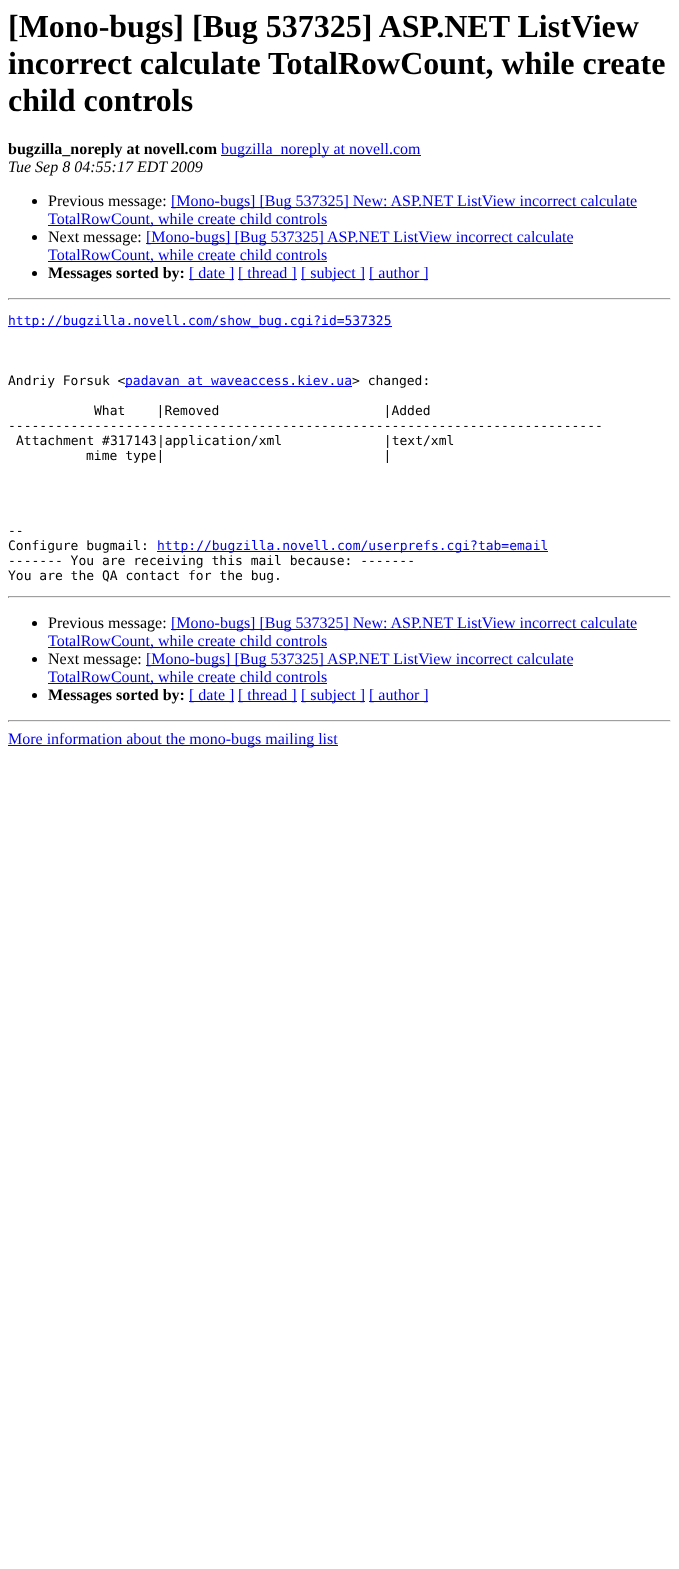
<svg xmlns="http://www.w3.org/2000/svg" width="679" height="1569">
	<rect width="100%" height="100%" fill="#FFFFFF" />
	<g font-family="Liberation Serif" font-size="32" font-weight="700" fill="#000000">
		<text x="8" y="37">[Mono-bugs] [Bug 537325] ASP.NET ListView</text>
		<text x="8" y="74">incorrect calculate TotalRowCount, while create</text>
		<text x="8" y="111">child controls</text>
	</g>
	<text x="8" y="154" font-family="Liberation Serif" font-size="16" font-weight="700" fill="#000000">bugzilla_noreply at novell.com</text>
	<rect x="221" y="155" width="200" height="1" fill="#0000EE" />
	<text x="221" y="154" font-family="Liberation Serif" font-size="16" fill="#0000EE">bugzilla_noreply at novell.com</text>
	<text x="8" y="172" font-family="Liberation Serif" font-size="16" font-style="italic" fill="#000000">Tue Sep 8 04:55:17 EDT 2009</text>
	<circle cx="34.5" cy="201.5" r="2.5" fill="#000000" />
	<text x="48" y="206" font-family="Liberation Serif" font-size="16" fill="#000000">Previous message:</text>
	<rect x="171" y="207" width="466" height="1" fill="#0000EE" />
	<text x="171" y="206" font-family="Liberation Serif" font-size="16" fill="#0000EE">[Mono-bugs] [Bug 537325] New: ASP.NET ListView incorrect calculate</text>
	<rect x="48" y="225" width="279" height="1" fill="#0000EE" />
	<text x="48" y="224" font-family="Liberation Serif" font-size="16" fill="#0000EE">TotalRowCount, while create child controls</text>
	<circle cx="34.5" cy="237.5" r="2.5" fill="#000000" />
	<text x="48" y="242" font-family="Liberation Serif" font-size="16" fill="#000000">Next message:</text>
	<rect x="146" y="243" width="427" height="1" fill="#0000EE" />
	<text x="146" y="242" font-family="Liberation Serif" font-size="16" fill="#0000EE">[Mono-bugs] [Bug 537325] ASP.NET ListView incorrect calculate</text>
	<rect x="48" y="261" width="279" height="1" fill="#0000EE" />
	<text x="48" y="260" font-family="Liberation Serif" font-size="16" fill="#0000EE">TotalRowCount, while create child controls</text>
	<circle cx="34.5" cy="273.5" r="2.5" fill="#000000" />
	<text x="48" y="278" font-family="Liberation Serif" font-size="16" font-weight="700" fill="#000000">Messages sorted by:</text>
	<rect x="189" y="279" width="45" height="1" fill="#0000EE" />
	<text x="189" y="278" font-family="Liberation Serif" font-size="16" fill="#0000EE">[ date ]</text>
	<rect x="238" y="279" width="59" height="1" fill="#0000EE" />
	<text x="238" y="278" font-family="Liberation Serif" font-size="16" fill="#0000EE">[ thread ]</text>
	<rect x="301" y="279" width="64" height="1" fill="#0000EE" />
	<text x="301" y="278" font-family="Liberation Serif" font-size="16" fill="#0000EE">[ subject ]</text>
	<rect x="369" y="279" width="59" height="1" fill="#0000EE" />
	<text x="369" y="278" font-family="Liberation Serif" font-size="16" fill="#0000EE">[ author ]</text>
	<rect x="8" y="298" width="663" height="1" fill="#9F9F9F" />
	<rect x="670" y="298" width="1" height="2" fill="#EEEEEE" />
	<rect x="8" y="299" width="663" height="1" fill="#EEEEEE" />
	<rect x="8" y="298" width="1" height="2" fill="#9F9F9F" />
	<rect x="8" y="326" width="384" height="1" fill="#0000EE" />
	<text x="8" y="325" font-family="DejaVu Sans Mono" font-size="13" fill="#0000EE">http://bugzilla.novell.com/show_bug.cgi?id=537325</text>
	<text x="8" y="385" font-family="DejaVu Sans Mono" font-size="13" fill="#000000">Andriy Forsuk &lt;</text>
	<rect x="125" y="386" width="227" height="1" fill="#0000EE" />
	<text x="125" y="385" font-family="DejaVu Sans Mono" font-size="13" fill="#0000EE">padavan at waveaccess.kiev.ua</text>
	<g font-family="DejaVu Sans Mono" font-size="13" fill="#000000">
		<text x="352" y="385">&gt; changed:</text>
		<text x="94" y="415" xml:space="preserve">What    |Removed                     |Added</text>
		<text x="8" y="430">----------------------------------------------------------------------------</text>
		<text x="16" y="445" xml:space="preserve">Attachment #317143|application/xml             |text/xml</text>
		<text x="86" y="460" xml:space="preserve">mime type|                            |</text>
		<text x="8" y="535">--</text>
		<text x="8" y="550">Configure bugmail:</text>
	</g>
	<rect x="157" y="551" width="391" height="1" fill="#0000EE" />
	<text x="157" y="550" font-family="DejaVu Sans Mono" font-size="13" fill="#0000EE">http://bugzilla.novell.com/userprefs.cgi?tab=email</text>
	<g font-family="DejaVu Sans Mono" font-size="13" fill="#000000">
		<text x="8" y="565">------- You are receiving this mail because: -------</text>
		<text x="8" y="580">You are the QA contact for the bug.</text>
	</g>
	<rect x="8" y="596" width="663" height="1" fill="#9F9F9F" />
	<rect x="670" y="596" width="1" height="2" fill="#EEEEEE" />
	<rect x="8" y="597" width="663" height="1" fill="#EEEEEE" />
	<rect x="8" y="596" width="1" height="2" fill="#9F9F9F" />
	<circle cx="34.5" cy="623.5" r="2.5" fill="#000000" />
	<text x="48" y="628" font-family="Liberation Serif" font-size="16" fill="#000000">Previous message:</text>
	<rect x="171" y="629" width="466" height="1" fill="#0000EE" />
	<text x="171" y="628" font-family="Liberation Serif" font-size="16" fill="#0000EE">[Mono-bugs] [Bug 537325] New: ASP.NET ListView incorrect calculate</text>
	<rect x="48" y="647" width="279" height="1" fill="#0000EE" />
	<text x="48" y="646" font-family="Liberation Serif" font-size="16" fill="#0000EE">TotalRowCount, while create child controls</text>
	<circle cx="34.5" cy="659.5" r="2.5" fill="#000000" />
	<text x="48" y="664" font-family="Liberation Serif" font-size="16" fill="#000000">Next message:</text>
	<rect x="146" y="665" width="427" height="1" fill="#0000EE" />
	<text x="146" y="664" font-family="Liberation Serif" font-size="16" fill="#0000EE">[Mono-bugs] [Bug 537325] ASP.NET ListView incorrect calculate</text>
	<rect x="48" y="683" width="279" height="1" fill="#0000EE" />
	<text x="48" y="682" font-family="Liberation Serif" font-size="16" fill="#0000EE">TotalRowCount, while create child controls</text>
	<circle cx="34.5" cy="695.5" r="2.5" fill="#000000" />
	<text x="48" y="700" font-family="Liberation Serif" font-size="16" font-weight="700" fill="#000000">Messages sorted by:</text>
	<rect x="189" y="701" width="45" height="1" fill="#0000EE" />
	<text x="189" y="700" font-family="Liberation Serif" font-size="16" fill="#0000EE">[ date ]</text>
	<rect x="238" y="701" width="59" height="1" fill="#0000EE" />
	<text x="238" y="700" font-family="Liberation Serif" font-size="16" fill="#0000EE">[ thread ]</text>
	<rect x="301" y="701" width="64" height="1" fill="#0000EE" />
	<text x="301" y="700" font-family="Liberation Serif" font-size="16" fill="#0000EE">[ subject ]</text>
	<rect x="369" y="701" width="59" height="1" fill="#0000EE" />
	<text x="369" y="700" font-family="Liberation Serif" font-size="16" fill="#0000EE">[ author ]</text>
	<rect x="8" y="720" width="663" height="1" fill="#9F9F9F" />
	<rect x="670" y="720" width="1" height="2" fill="#EEEEEE" />
	<rect x="8" y="721" width="663" height="1" fill="#EEEEEE" />
	<rect x="8" y="720" width="1" height="2" fill="#9F9F9F" />
	<rect x="8" y="745" width="330" height="1" fill="#0000EE" />
	<text x="8" y="744" font-family="Liberation Serif" font-size="16" fill="#0000EE">More information about the mono-bugs mailing list</text>
</svg>
